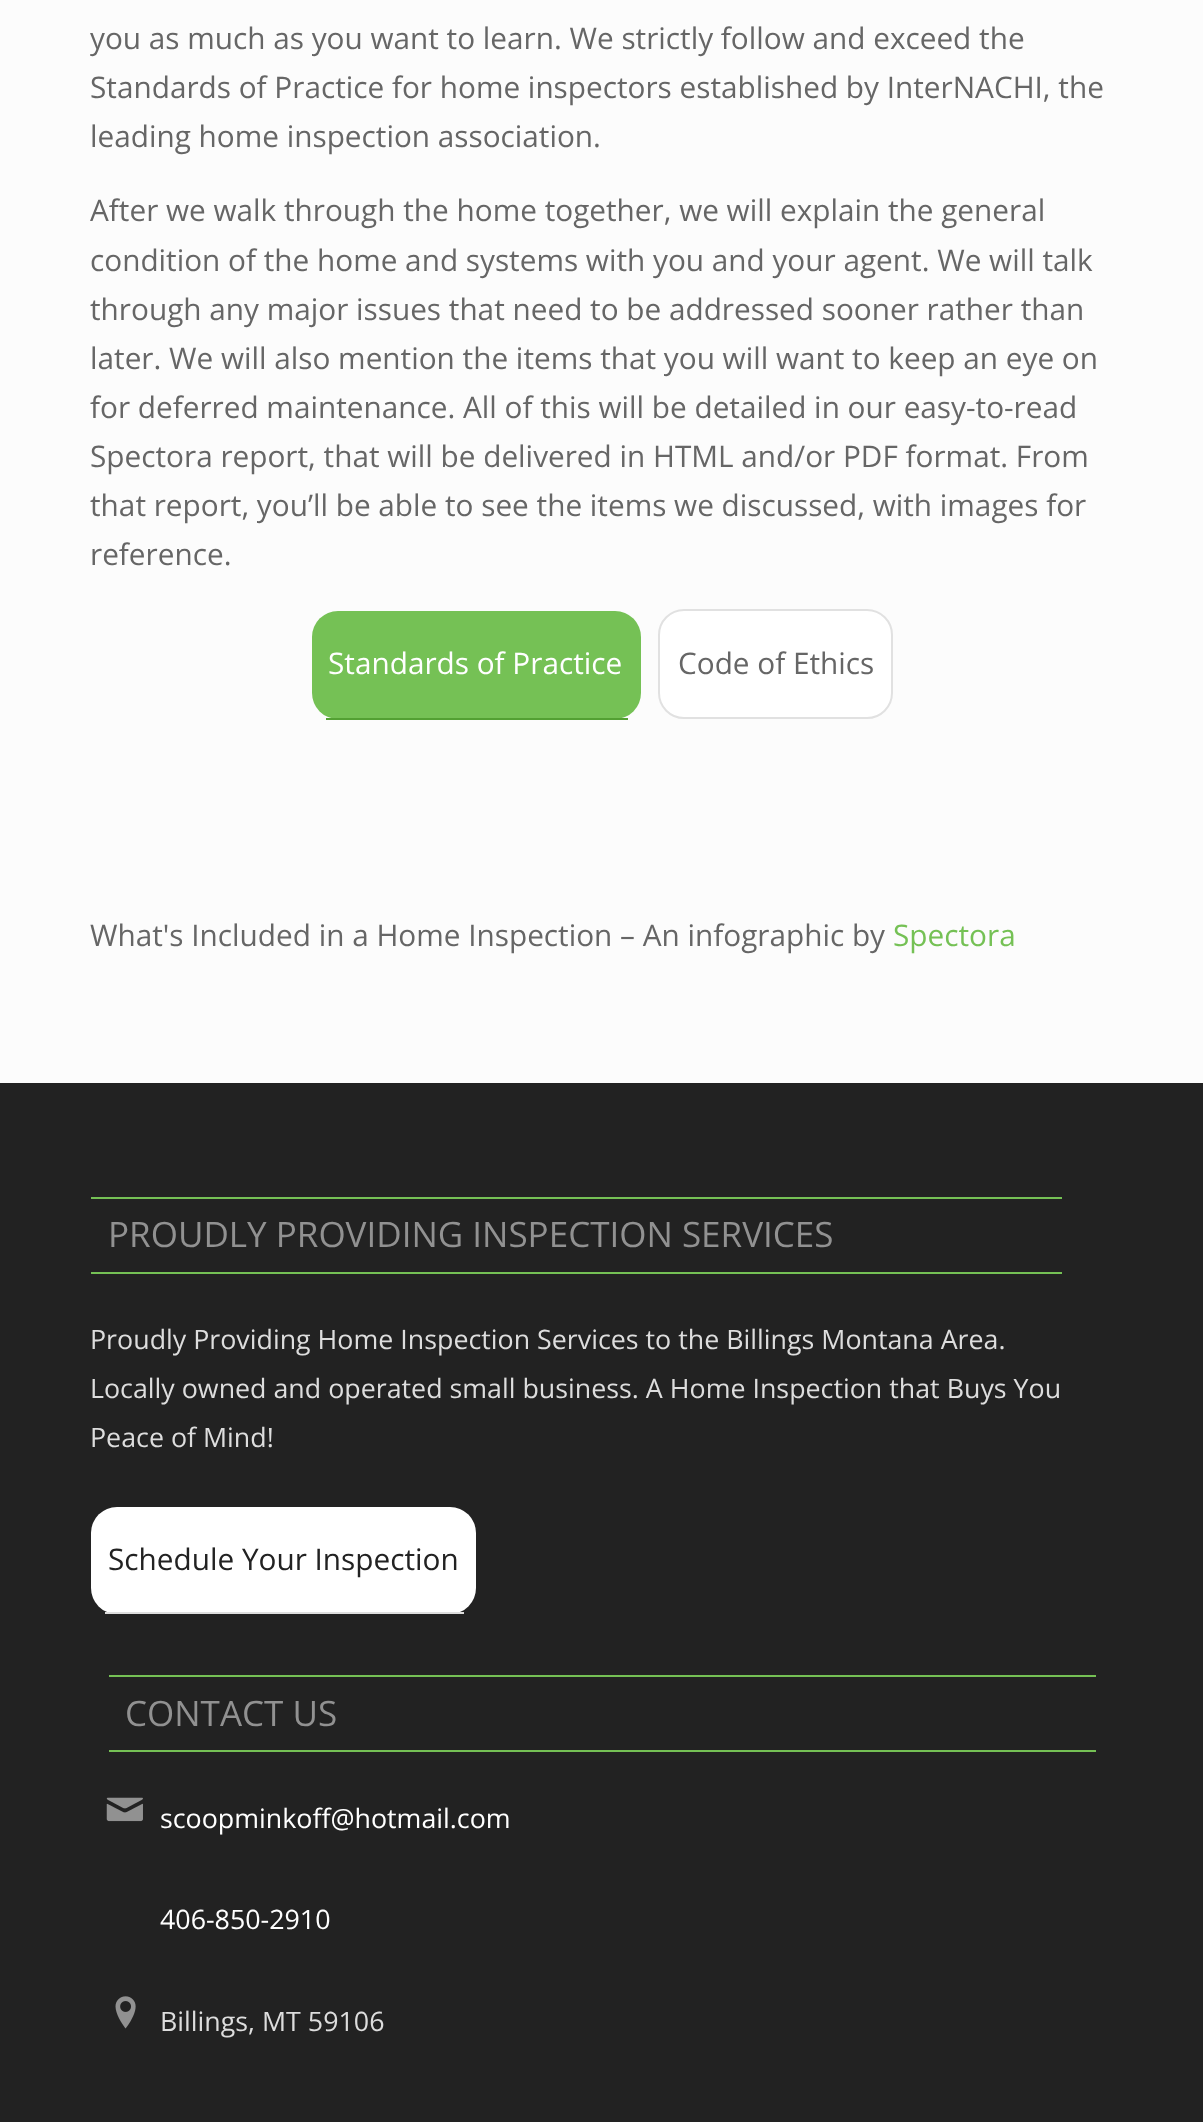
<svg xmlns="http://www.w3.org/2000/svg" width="1203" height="2122">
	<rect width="100%" height="100%" fill="#FCFCFC" />
	<g font-family="Open Sans" font-size="29.75" fill="#666666">
		<text x="90" y="49">you as much as you want to learn. We strictly follow and exceed the</text>
		<text x="90" y="98">Standards of Practice for home inspectors established by InterNACHI, the</text>
		<text x="90" y="147">leading home inspection association.</text>
		<text x="90" y="221">After we walk through the home together, we will explain the general</text>
		<text x="90" y="271">condition of the home and systems with you and your agent. We will talk</text>
		<text x="90" y="320">through any major issues that need to be addressed sooner rather than</text>
		<text x="90" y="369">later. We will also mention the items that you will want to keep an eye on</text>
		<text x="90" y="418">for deferred maintenance. All of this will be detailed in our easy-to-read</text>
		<text x="90" y="467">Spectora report, that will be delivered in HTML and/or PDF format. From</text>
		<text x="90" y="516">that report, you’ll be able to see the items we discussed, with images for</text>
		<text x="90" y="565">reference.</text>
	</g>
	<rect x="312" y="611" width="329" height="108" rx="26" fill="#75C155" />
	<rect x="326" y="718" width="302" height="2" fill="#53A033" />
	<text x="328" y="674" font-family="Open Sans" font-size="29.75" fill="#FFFFFF">Standards of Practice</text>
	<rect x="659" y="610" width="233" height="108" rx="25" fill="#FFFFFF" stroke="#E1E1E1" stroke-width="2" />
	<g font-family="Open Sans" font-size="29.75" fill="#666666">
		<text x="678" y="674">Code of Ethics</text>
		<text x="90" y="946">What's Included in a Home Inspection – An infographic by</text>
	</g>
	<text x="893" y="946" font-family="Open Sans" font-size="29.75" fill="#75C155">Spectora</text>
	<rect x="0" y="1083" width="1203" height="1039" fill="#222222" />
	<rect x="91" y="1197" width="971" height="2" fill="#75C155" />
	<rect x="91" y="1272" width="971" height="2" fill="#75C155" />
	<text x="108" y="1247" font-family="Open Sans" font-size="35" fill="#919191">PROUDLY PROVIDING INSPECTION SERVICES</text>
	<g font-family="Open Sans" font-size="26.8" fill="#DDDDDD">
		<text x="90" y="1349">Proudly Providing Home Inspection Services to the Billings Montana Area.</text>
		<text x="90" y="1398">Locally owned and operated small business. A Home Inspection that Buys You</text>
		<text x="90" y="1447">Peace of Mind!</text>
	</g>
	<rect x="91" y="1507" width="385" height="107" rx="26" fill="#FFFFFF" />
	<rect x="105" y="1612" width="359" height="2" fill="#DDDDDD" />
	<text x="108" y="1570" font-family="Open Sans" font-size="29.75" fill="#222222">Schedule Your Inspection</text>
	<rect x="109" y="1675" width="987" height="2" fill="#75C155" />
	<rect x="109" y="1750" width="987" height="2" fill="#75C155" />
	<text x="125" y="1726" font-family="Open Sans" font-size="35" fill="#919191">CONTACT US</text>
	<image x="106" y="1797" width="37" height="25" href="assets/img1.png" />
	<g font-family="Open Sans" font-size="26.8" fill="#FFFFFF">
		<text x="160" y="1828">scoopminkoff@hotmail.com</text>
		<text x="160" y="1929">406-850-2910</text>
	</g>
	<image x="115" y="1996" width="21" height="33" href="assets/img2.png" />
	<text x="160" y="2031" font-family="Open Sans" font-size="26.8" fill="#DDDDDD">Billings, MT 59106</text>
</svg>
